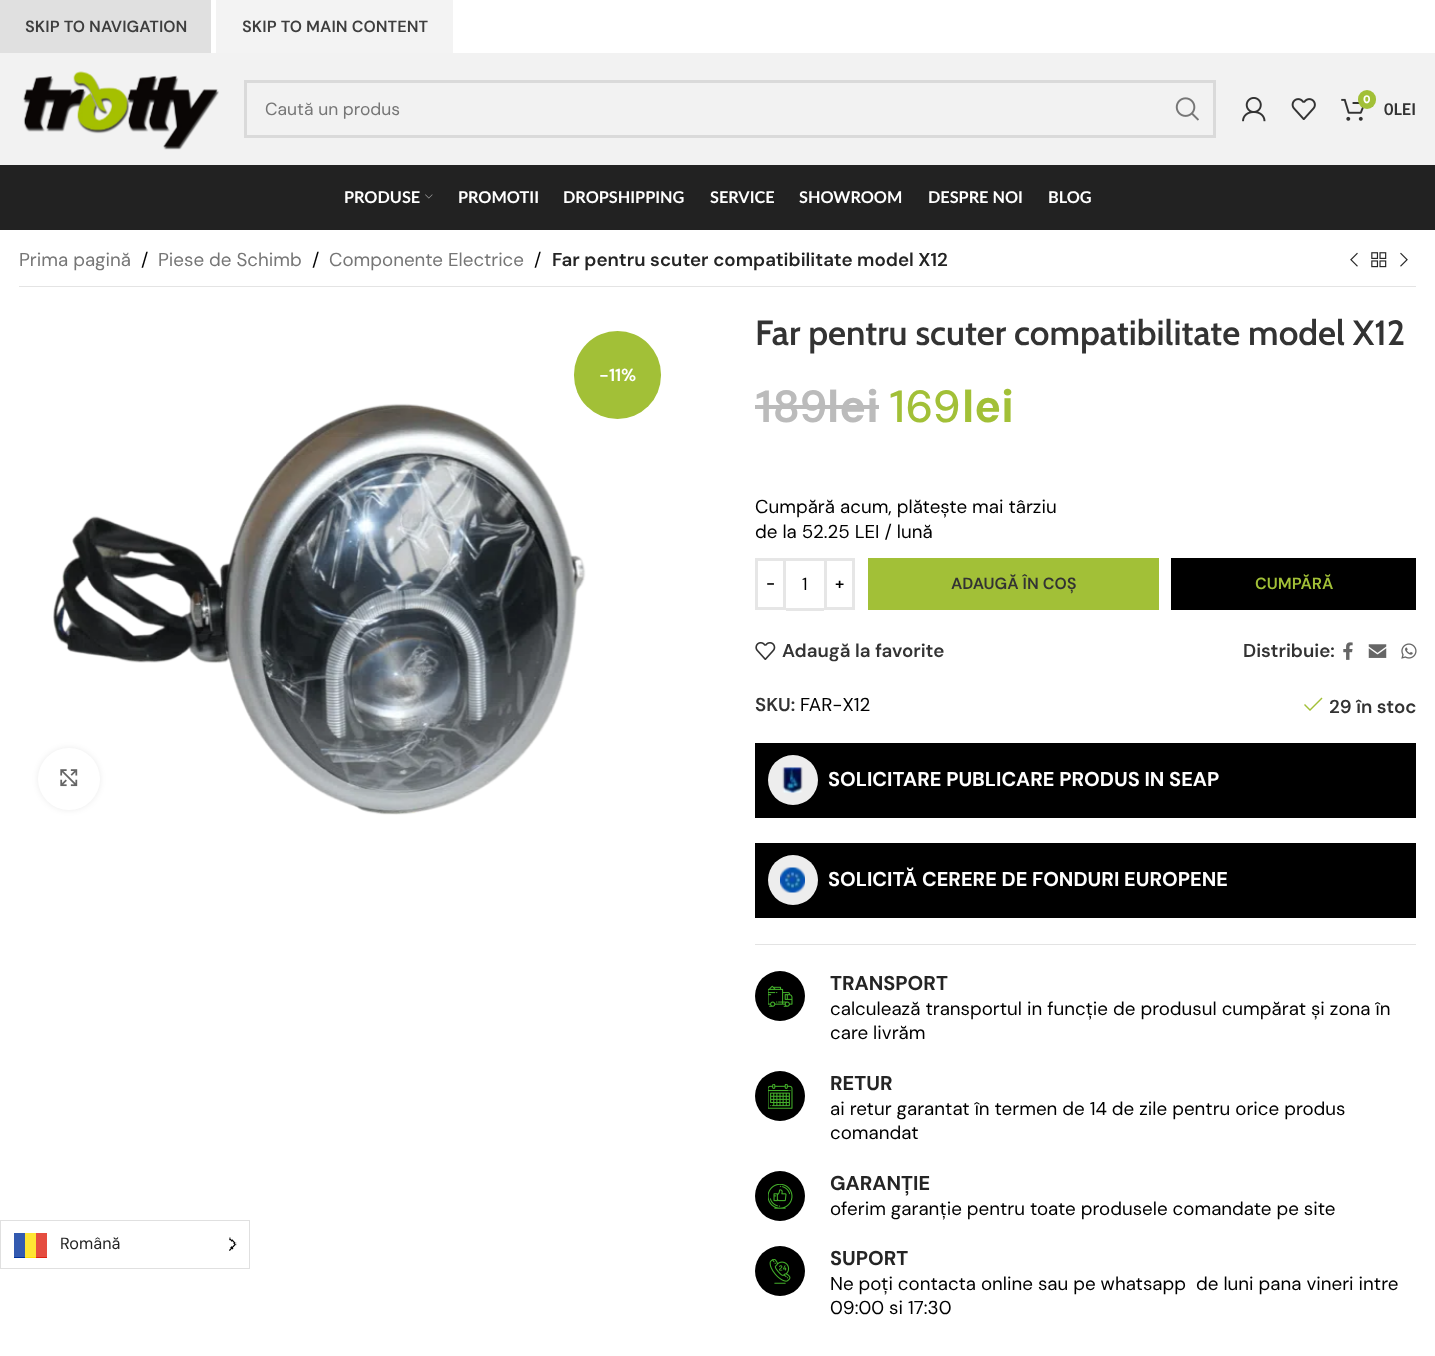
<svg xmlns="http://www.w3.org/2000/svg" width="1435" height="1356">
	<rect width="100%" height="100%" fill="#FFFFFF" />
	<rect x="0" y="0" width="211" height="53" fill="#E0E0E0" />
	<text x="25" y="32" font-family="DM Sans" font-size="16.25" font-weight="600" fill="#3E3E3E">SKIP TO NAVIGATION</text>
	<rect x="216" y="0" width="237" height="53" fill="#F3F3F3" />
	<text x="242" y="32" font-family="DM Sans" font-size="16.25" font-weight="600" fill="#3E3E3E">SKIP TO MAIN CONTENT</text>
	<rect x="0" y="53" width="1435" height="112" fill="#F2F2F2" />
	<image x="23" y="71" width="196" height="79" href="assets/img1.png" />
	<rect x="245.5" y="81.5" width="969" height="55" fill="none" stroke="#DADADA" stroke-width="3" />
	<text x="265" y="115" font-family="'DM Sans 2'" font-size="17.5" fill="#767676">Caută un produs</text>
	<image x="1175" y="97" width="24" height="24" href="assets/img2.png" />
	<image x="1242" y="97" width="24" height="25" href="assets/img3.png" />
	<image x="1291" y="98" width="25" height="22" href="assets/img4.png" />
	<image x="1341" y="98" width="23" height="23" href="assets/img5.png" />
	<rect x="1358" y="90" width="18" height="19" rx="9" fill="#A2C037" />
	<text x="1363" y="103" font-family="DM Sans" font-size="11" font-weight="900" fill="#FFFFFF">0</text>
	<text x="1384" y="115" font-family="Lato" font-size="16.25" font-weight="700" fill="#333333">0LEI</text>
	<rect x="0" y="165" width="1435" height="65" fill="#222222" />
	<text x="344" y="203" font-family="Lato" font-size="16.25" font-weight="700" fill="#FFFFFF">PRODUSE</text>
	<image x="425" y="194" width="8" height="5" href="assets/img6.png" />
	<g font-family="Lato" font-size="16.25" font-weight="700" fill="#FFFFFF">
		<text x="458" y="203">PROMOTII</text>
		<text x="563" y="203">DROPSHIPPING</text>
		<text x="710" y="203">SERVICE</text>
		<text x="799" y="203">SHOWROOM</text>
		<text x="928" y="203">DESPRE NOI</text>
		<text x="1048" y="203">BLOG</text>
	</g>
	<rect x="19" y="286" width="1397" height="1" fill="#E4E4E4" />
	<text x="19" y="266" font-family="DM Sans" font-size="18.75" fill="#767676">Prima pagină</text>
	<text x="141" y="266" font-family="DM Sans" font-size="18.75" fill="#000000">/</text>
	<text x="158" y="266" font-family="DM Sans" font-size="18.75" fill="#767676">Piese de Schimb</text>
	<text x="312" y="266" font-family="DM Sans" font-size="18.75" fill="#000000">/</text>
	<text x="329" y="266" font-family="DM Sans" font-size="18.75" fill="#767676">Componente Electrice</text>
	<text x="534" y="266" font-family="DM Sans" font-size="18.75" fill="#000000">/</text>
	<text x="552" y="266" font-family="'DM Sans 2'" font-size="18.75" font-weight="600" fill="#242424">Far pentru scuter compatibilitate model X12</text>
	<image x="1350" y="252" width="8" height="15" href="assets/img7.png" />
	<image x="1371" y="252" width="16" height="16" href="assets/img8.png" />
	<image x="1400" y="252" width="8" height="15" href="assets/img9.png" />
	<image x="53" y="403" width="533" height="412" href="assets/img10.png" />
	<rect x="574" y="331" width="87" height="88" rx="43.5" fill="#A2C037" />
	<text x="599" y="381" font-family="'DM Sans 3'" font-size="17.5" font-weight="600" fill="#FFFFFF">-11%</text>
	<rect x="38" y="748" width="62" height="62" rx="31" fill="#000000" fill-opacity="0.08" filter="blur(3px)" />
	<circle cx="69" cy="779" r="31" fill="#FFFFFF" />
	<image x="60" y="769" width="18" height="18" href="assets/img11.png" />
	<text x="755" y="345" font-family="Cabin" font-size="35" font-weight="600" fill="#333333">Far pentru scuter compatibilitate model X12</text>
	<text x="755" y="422" font-family="DM Sans" font-size="45" font-weight="600" fill="#BBBBBB">189</text>
	<rect x="755" y="405" width="73" height="4" fill="#BBBBBB" />
	<text x="827" y="422" font-family="DM Sans" font-size="45" font-weight="700" fill="#BBBBBB">lei</text>
	<rect x="828" y="405" width="51" height="4" fill="#BBBBBB" />
	<text x="889" y="422" font-family="DM Sans" font-size="45" font-weight="500" fill="#A2C037">169</text>
	<text x="962" y="422" font-family="DM Sans" font-size="45" font-weight="700" fill="#A2C037">lei</text>
	<g font-family="DM Sans" font-size="18.75" fill="#000000">
		<text x="755" y="513">Cumpără acum, plătește mai târziu</text>
		<text x="755" y="538">de la 52.25 LEI / lună</text>
	</g>
	<rect x="756.5" y="559.5" width="28" height="49" fill="none" stroke="#E6E6E6" stroke-width="3" />
	<text x="766" y="589" font-family="DM Sans" font-size="16.25" font-weight="600" fill="#000000">-</text>
	<rect x="786" y="558" width="38" height="3" fill="#E6E6E6" />
	<rect x="786" y="608" width="38" height="3" fill="#E6E6E6" />
	<text x="802" y="590" font-family="'DM Sans 2'" font-size="17.5" fill="#000000">1</text>
	<rect x="825.5" y="559.5" width="28" height="49" fill="none" stroke="#E6E6E6" stroke-width="3" />
	<text x="835" y="589" font-family="DM Sans" font-size="16.25" font-weight="600" fill="#000000">+</text>
	<rect x="868" y="558" width="291" height="52" fill="#A2C037" />
	<text x="951" y="589" font-family="DM Sans" font-size="16.25" font-weight="600" fill="#333333">ADAUGĂ ÎN COȘ</text>
	<rect x="1171" y="558" width="245" height="52" fill="#000000" />
	<text x="1255" y="589" font-family="DM Sans" font-size="16.25" font-weight="600" fill="#A2C037">CUMPĂRĂ</text>
	<image x="755" y="642" width="21" height="18" href="assets/img12.png" />
	<g font-family="'DM Sans 2'" font-size="18.75" font-weight="600" fill="#333333">
		<text x="782" y="657">Adaugă la favorite</text>
		<text x="1243" y="657">Distribuie:</text>
	</g>
	<image x="1343" y="642" width="10" height="18" href="assets/img13.png" />
	<image x="1368" y="644" width="19" height="14" href="assets/img14.png" />
	<image x="1401" y="643" width="16" height="16" href="assets/img15.png" />
	<text x="755" y="711" font-family="'DM Sans 2'" font-size="18.75" font-weight="600" fill="#333333">SKU:</text>
	<text x="800" y="711" font-family="DM Sans" font-size="18.75" fill="#000000">FAR-X12</text>
	<path d="M1322.5 698.5L1321.5 697.5L1310 709L1305 704L1304 705L1310 711Z" fill="#A2C037" />
	<text x="1329" y="713" font-family="'DM Sans 2'" font-size="18.75" font-weight="600" fill="#333333">29 în stoc</text>
	<rect x="755" y="743" width="661" height="75" fill="#000000" />
	<circle cx="793" cy="780" r="25" fill="#EDEDED" />
	<image x="782" y="767" width="21" height="26" href="assets/img16.png" />
	<text x="828" y="786" font-family="'DM Sans 2'" font-size="20" font-weight="700" fill="#FFFFFF">SOLICITARE PUBLICARE PRODUS IN SEAP</text>
	<rect x="755" y="843" width="661" height="75" fill="#000000" />
	<circle cx="793" cy="880" r="25" fill="#EDEDED" />
	<image x="780" y="867" width="25" height="26" href="assets/img17.png" />
	<text x="828" y="886" font-family="'DM Sans 2'" font-size="20" font-weight="700" fill="#FFFFFF">SOLICITĂ CERERE DE FONDURI EUROPENE</text>
	<rect x="755" y="944" width="661" height="1" fill="#E3E3E3" />
	<circle cx="780" cy="996" r="25" fill="#000000" />
	<image x="768" y="985" width="25" height="22" href="assets/img18.png" />
	<text x="830" y="990" font-family="'DM Sans 2'" font-size="20" font-weight="700" fill="#242424">TRANSPORT</text>
	<g font-family="DM Sans" font-size="18.75" fill="#000000">
		<text x="830" y="1015">calculează transportul in funcție de produsul cumpărat și zona în</text>
		<text x="830" y="1039">care livrăm</text>
	</g>
	<circle cx="780" cy="1096" r="25" fill="#000000" />
	<image x="768" y="1084" width="25" height="25" href="assets/img19.png" />
	<text x="830" y="1090" font-family="'DM Sans 2'" font-size="20" font-weight="700" fill="#242424">RETUR</text>
	<g font-family="DM Sans" font-size="18.75" fill="#000000">
		<text x="830" y="1115">ai retur garantat în termen de 14 de zile pentru orice produs</text>
		<text x="830" y="1139">comandat</text>
	</g>
	<circle cx="780" cy="1196" r="25" fill="#000000" />
	<image x="768" y="1184" width="25" height="25" href="assets/img20.png" />
	<text x="830" y="1190" font-family="'DM Sans 2'" font-size="20" font-weight="700" fill="#242424">GARANȚIE</text>
	<text x="830" y="1215" font-family="DM Sans" font-size="18.75" fill="#000000">oferim garanție pentru toate produsele comandate pe site</text>
	<circle cx="780" cy="1271" r="25" fill="#000000" />
	<image x="769" y="1259" width="22" height="25" href="assets/img21.png" />
	<text x="830" y="1265" font-family="'DM Sans 2'" font-size="20" font-weight="700" fill="#242424">SUPORT</text>
	<g font-family="DM Sans" font-size="18.75" fill="#000000">
		<text x="830" y="1290" xml:space="preserve">Ne poți contacta online sau pe whatsapp  de luni pana vineri intre</text>
		<text x="830" y="1314">09:00 si 17:30</text>
	</g>
	<rect x="0.5" y="1220.5" width="249" height="48" fill="none" stroke="#E0E0E0" />
	<rect x="14" y="1257" width="11" height="1" fill="#00319C" />
	<rect x="14" y="1233" width="11" height="24" fill="#335AB0" />
	<rect x="25" y="1257" width="11" height="1" fill="#FFDE00" />
	<rect x="25" y="1233" width="11" height="24" fill="#FFE533" />
	<rect x="36" y="1257" width="11" height="1" fill="#DE2110" />
	<rect x="36" y="1233" width="11" height="24" fill="#E54D40" />
	<text x="60" y="1249" font-family="'DM Sans 3'" font-size="16.25" fill="#242424">Română</text>
	<image x="229" y="1237" width="8" height="14" href="assets/img22.png" />
</svg>
